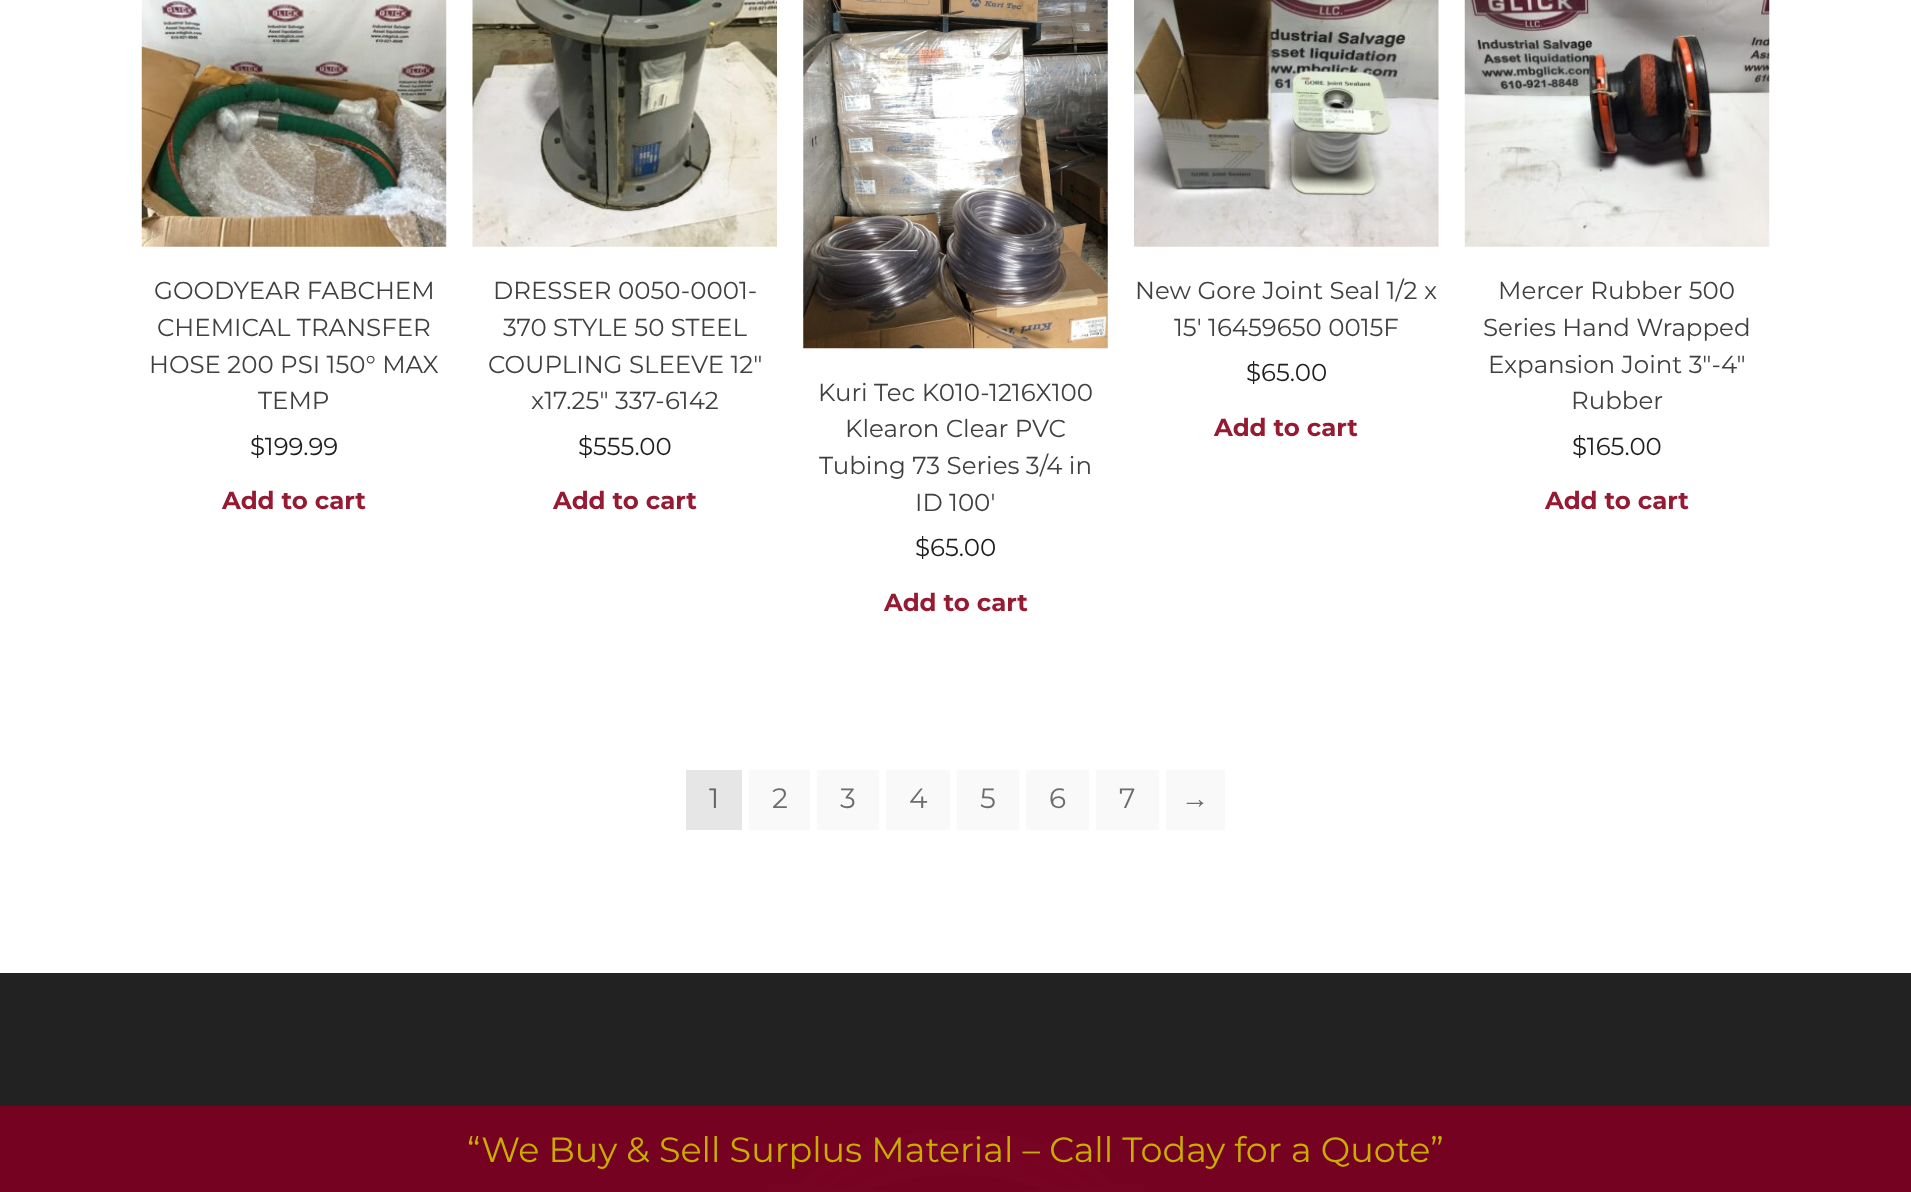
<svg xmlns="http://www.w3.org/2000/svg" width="1911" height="1192">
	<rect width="100%" height="100%" fill="#FFFFFF" />
	<image x="141" y="0" width="306" height="247" href="assets/img1.png" />
	<g font-family="Montserrat" font-size="24.5" fill="#404040">
		<text x="154" y="299">GOODYEAR FABCHEM</text>
		<text x="157" y="336">CHEMICAL TRANSFER</text>
		<text x="149" y="373">HOSE 200 PSI 150° MAX</text>
		<text x="258" y="409">TEMP</text>
	</g>
	<text x="250" y="455" font-family="Montserrat" font-size="24.5" fill="#1F1F1F">$199.99</text>
	<text x="222" y="509" font-family="Montserrat" font-size="24.5" font-weight="700" fill="#951A32">Add to cart</text>
	<image x="472" y="0" width="305" height="247" href="assets/img2.png" />
	<g font-family="Montserrat" font-size="24.5" fill="#404040">
		<text x="493" y="299">DRESSER 0050-0001-</text>
		<text x="503" y="336">370 STYLE 50 STEEL</text>
		<text x="488" y="373">COUPLING SLEEVE 12″</text>
		<text x="531" y="409">x17.25″ 337-6142</text>
	</g>
	<text x="578" y="455" font-family="Montserrat" font-size="24.5" fill="#1F1F1F">$555.00</text>
	<text x="553" y="509" font-family="Montserrat" font-size="24.5" font-weight="700" fill="#951A32">Add to cart</text>
	<image x="803" y="0" width="305" height="349" href="assets/img3.png" />
	<g font-family="Montserrat" font-size="24.5" fill="#404040">
		<text x="818" y="401">Kuri Tec K010-1216X100</text>
		<text x="845" y="437">Klearon Clear PVC</text>
		<text x="819" y="474">Tubing 73 Series 3/4 in</text>
		<text x="915" y="511">ID 100′</text>
	</g>
	<text x="915" y="556" font-family="Montserrat" font-size="24.5" fill="#1F1F1F">$65.00</text>
	<text x="884" y="611" font-family="Montserrat" font-size="24.5" font-weight="700" fill="#951A32">Add to cart</text>
	<image x="1134" y="0" width="305" height="247" href="assets/img4.png" />
	<g font-family="Montserrat" font-size="24.5" fill="#404040">
		<text x="1135" y="299">New Gore Joint Seal 1/2 x</text>
		<text x="1174" y="336">15′ 16459650 0015F</text>
	</g>
	<text x="1246" y="381" font-family="Montserrat" font-size="24.5" fill="#1F1F1F">$65.00</text>
	<text x="1214" y="436" font-family="Montserrat" font-size="24.5" font-weight="700" fill="#951A32">Add to cart</text>
	<image x="1464" y="0" width="306" height="247" href="assets/img5.png" />
	<g font-family="Montserrat" font-size="24.5" fill="#404040">
		<text x="1498" y="299">Mercer Rubber 500</text>
		<text x="1483" y="336">Series Hand Wrapped</text>
		<text x="1488" y="373">Expansion Joint 3″-4″</text>
		<text x="1571" y="409">Rubber</text>
	</g>
	<text x="1572" y="455" font-family="Montserrat" font-size="24.5" fill="#1F1F1F">$165.00</text>
	<text x="1545" y="509" font-family="Montserrat" font-size="24.5" font-weight="700" fill="#951A32">Add to cart</text>
	<rect x="686" y="770" width="56" height="60" fill="#E6E6E6" />
	<text x="709" y="808" font-family="Montserrat" font-size="28" fill="#636363">1</text>
	<rect x="749" y="770" width="61" height="60" fill="#F9F9F9" />
	<text x="772" y="808" font-family="Montserrat" font-size="28" fill="#6D6D6D">2</text>
	<rect x="817" y="770" width="62" height="60" fill="#F9F9F9" />
	<text x="840" y="808" font-family="Montserrat" font-size="28" fill="#6D6D6D">3</text>
	<rect x="886" y="770" width="64" height="60" fill="#F9F9F9" />
	<text x="909" y="808" font-family="Montserrat" font-size="28" fill="#6D6D6D">4</text>
	<rect x="957" y="770" width="62" height="60" fill="#F9F9F9" />
	<text x="980" y="808" font-family="Montserrat" font-size="28" fill="#6D6D6D">5</text>
	<rect x="1026" y="770" width="63" height="60" fill="#F9F9F9" />
	<text x="1049" y="808" font-family="Montserrat" font-size="28" fill="#6D6D6D">6</text>
	<rect x="1096" y="770" width="63" height="60" fill="#F9F9F9" />
	<text x="1119" y="808" font-family="Montserrat" font-size="28" fill="#6D6D6D">7</text>
	<rect x="1166" y="770" width="59" height="60" fill="#F9F9F9" />
	<text x="1181" y="808" font-family="Liberation Sans" font-size="28" fill="#6D6D6D">→</text>
	<rect x="0" y="973" width="1911" height="133" fill="#222222" />
	<rect x="0" y="1106" width="1911" height="86" fill="#760221" />
	<image x="768" y="1130" width="377" height="62" href="assets/img6.png" />
	<text x="467" y="1162" font-family="Montserrat" font-size="35" fill="#C9AE00">“We Buy &amp; Sell Surplus Material – Call Today for a Quote”</text>
</svg>
